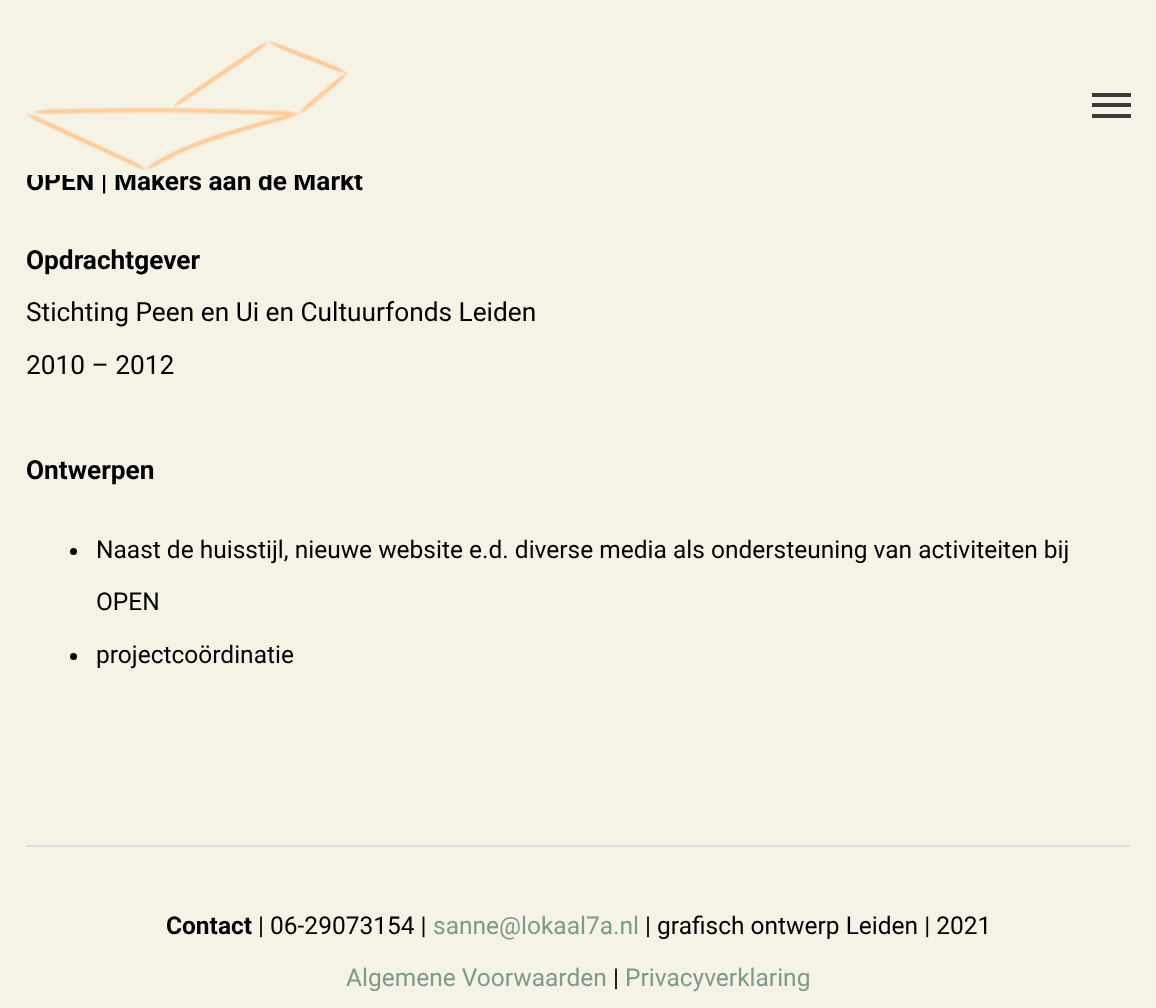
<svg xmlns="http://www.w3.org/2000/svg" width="1156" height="1008">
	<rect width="100%" height="100%" fill="#F5F2E6" />
	<text x="26" y="190" font-family="Roboto" font-size="26.25" font-weight="700" fill="#000000">OPEN | Makers aan de Markt</text>
	<rect x="28" y="170" width="333" height="5" fill="#F5F2E6" />
	<image x="26" y="41" width="322" height="129" href="assets/img1.png" />
	<rect x="1092" y="103" width="39" height="4" fill="#3B3B3B" />
	<rect x="1092" y="93" width="39" height="4" fill="#3B3B3B" />
	<rect x="1092" y="114" width="39" height="4" fill="#3B3B3B" />
	<text x="26" y="269" font-family="Roboto" font-size="26.25" font-weight="700" fill="#000000">Opdrachtgever</text>
	<g font-family="Roboto" font-size="26.25" fill="#000000">
		<text x="26" y="321">Stichting Peen en Ui en Cultuurfonds Leiden</text>
		<text x="26" y="374">2010 – 2012</text>
	</g>
	<text x="26" y="479" font-family="Roboto" font-size="26.25" font-weight="700" fill="#000000">Ontwerpen</text>
	<circle cx="73.5" cy="551.5" r="3.5" fill="#000000" />
	<g font-family="Roboto" font-size="24.5" fill="#000000">
		<text x="96" y="558">Naast de huisstijl, nieuwe website e.d. diverse media als ondersteuning van activiteiten bij</text>
		<text x="96" y="610">OPEN</text>
	</g>
	<circle cx="73.5" cy="656.5" r="3.5" fill="#000000" />
	<text x="96" y="663" font-family="Roboto" font-size="24.5" fill="#000000">projectcoördinatie</text>
	<rect x="26" y="845" width="1105" height="2" fill="#DEDEDE" />
	<text x="166" y="934" font-family="Roboto" font-size="24.5" font-weight="700" fill="#000000">Contact</text>
	<text x="258" y="934" font-family="Roboto" font-size="24.5" fill="#000000">| 06-29073154 |</text>
	<text x="433" y="934" font-family="Roboto" font-size="24.5" fill="#7F9A8B">sanne@lokaal7a.nl</text>
	<text x="645" y="934" font-family="Roboto" font-size="24.5" fill="#000000">| grafisch ontwerp Leiden | 2021</text>
	<text x="346" y="986" font-family="Roboto" font-size="24.5" fill="#7F9A8B">Algemene Voorwaarden</text>
	<text x="613" y="986" font-family="Roboto" font-size="24.5" fill="#000000">|</text>
	<text x="625" y="986" font-family="Roboto" font-size="24.5" fill="#7F9A8B">Privacyverklaring</text>
</svg>
